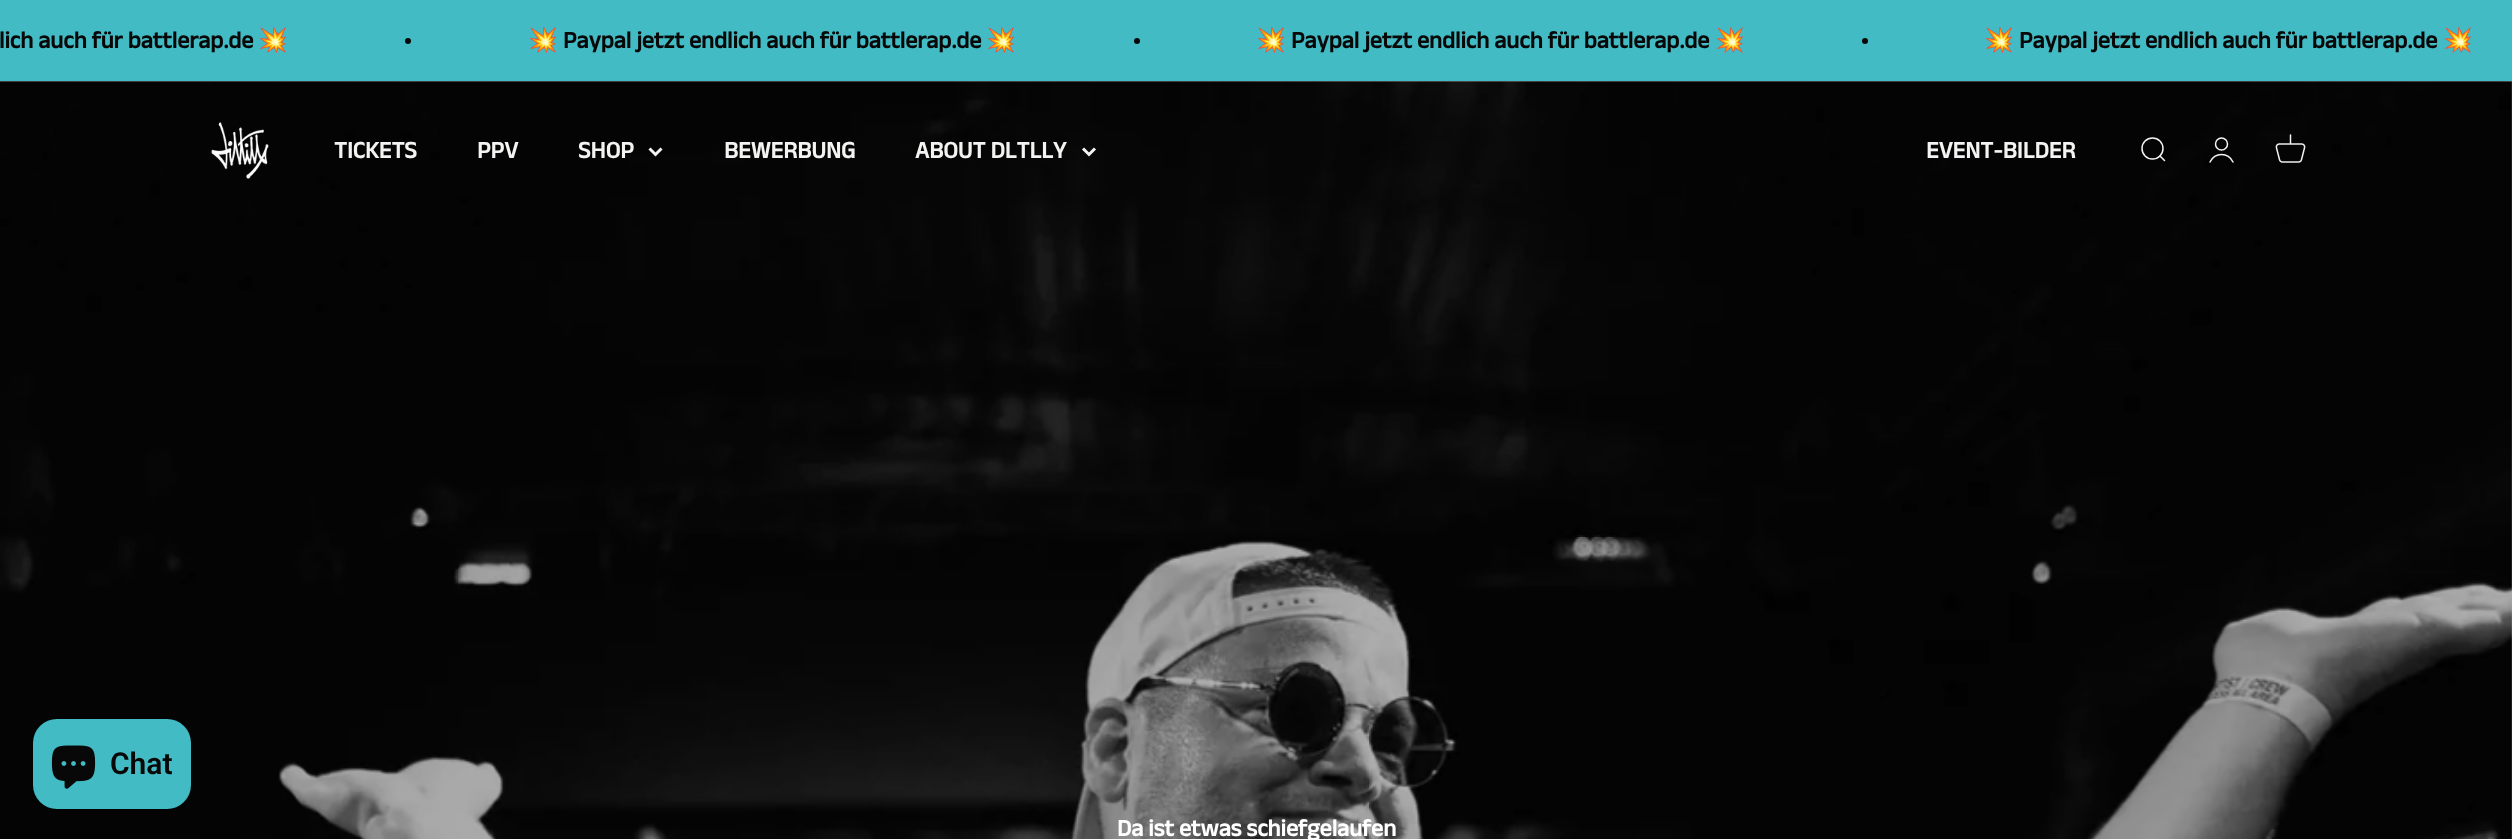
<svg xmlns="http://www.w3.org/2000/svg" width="2512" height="839">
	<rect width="100%" height="100%" fill="#A9A9A9" />
	<rect x="0" y="0" width="2512" height="81" fill="#43BBC4" />
	<text x="-1" y="48" font-family="Anek Latin" font-size="24" font-weight="700" fill="#080808">lich auch für battlerap.de</text>
	<text x="258" y="48" font-family="Noto Color Emoji" font-size="24" font-weight="700" fill="#080808">💥</text>
	<circle cx="408" cy="41" r="3" fill="#080808" />
	<text x="528" y="48" font-family="Noto Color Emoji" font-size="24" font-weight="700" fill="#080808">💥</text>
	<text x="563" y="48" font-family="Anek Latin" font-size="24" font-weight="700" fill="#080808">Paypal jetzt endlich auch für battlerap.de</text>
	<text x="986" y="48" font-family="Noto Color Emoji" font-size="24" font-weight="700" fill="#080808">💥</text>
	<circle cx="1137" cy="41" r="3" fill="#080808" />
	<text x="1256" y="48" font-family="Noto Color Emoji" font-size="24" font-weight="700" fill="#080808">💥</text>
	<text x="1291" y="48" font-family="Anek Latin" font-size="24" font-weight="700" fill="#080808">Paypal jetzt endlich auch für battlerap.de</text>
	<text x="1715" y="48" font-family="Noto Color Emoji" font-size="24" font-weight="700" fill="#080808">💥</text>
	<circle cx="1865" cy="41" r="3" fill="#080808" />
	<text x="1984" y="48" font-family="Noto Color Emoji" font-size="24" font-weight="700" fill="#080808">💥</text>
	<text x="2019" y="48" font-family="Anek Latin" font-size="24" font-weight="700" fill="#080808">Paypal jetzt endlich auch für battlerap.de</text>
	<text x="2443" y="48" font-family="Noto Color Emoji" font-size="24" font-weight="700" fill="#080808">💥</text>
	<image x="0" y="81" width="2512" height="758" href="assets/img4.png" />
	<image x="211" y="122" width="58" height="57" href="assets/img1.png" />
	<g font-family="Anek Latin" font-size="24" font-weight="700" fill="#F3F3F2">
		<text x="334" y="158">TICKETS</text>
		<text x="477" y="158">PPV</text>
		<text x="578" y="158">SHOP</text>
	</g>
	<path d="M649.5 148.5L655.5 154.5L661.5 148.5" fill="none" stroke="#F3F3F2" stroke-width="3" />
	<g font-family="Anek Latin" font-size="24" font-weight="700" fill="#F3F3F2">
		<text x="724" y="158">BEWERBUNG</text>
		<text x="915" y="158">ABOUT DLTLLY</text>
	</g>
	<path d="M1083 148.5L1089 154.5L1095 148.5" fill="none" stroke="#F3F3F2" stroke-width="3" />
	<text x="1926" y="158" font-family="Anek Latin" font-size="24" font-weight="700" fill="#F3F3F2">EVENT-BILDER</text>
	<circle cx="2152.5" cy="148.5" r="10.5" fill="none" stroke="#F3F3F2" stroke-width="1.5" />
	<path d="M2160 156L2164.5 160.5" fill="none" stroke="#F3F3F2" stroke-width="1.5" stroke-linecap="round" stroke-linejoin="round" />
	<circle cx="2221.5" cy="144" r="6" fill="none" stroke="#F3F3F2" stroke-width="1.5" />
	<path d="M2210 162C2215 152 2228 152 2233 162" fill="none" stroke="#F3F3F2" stroke-width="1.5" stroke-linecap="round" />
	<image x="2275" y="134" width="31" height="29" href="assets/img2.png" />
	<rect x="33" y="719" width="158" height="90" rx="24" fill="#43BBC4" />
	<image x="51" y="745" width="45" height="44" href="assets/img3.png" />
	<text x="110" y="774" font-family="Roboto" font-size="30" font-weight="600" fill="#080808">Chat</text>
	<text x="1117" y="836" font-family="Anek Latin" font-size="24" font-weight="700" fill="#FFFFFF">Da ist etwas schiefgelaufen</text>
</svg>
